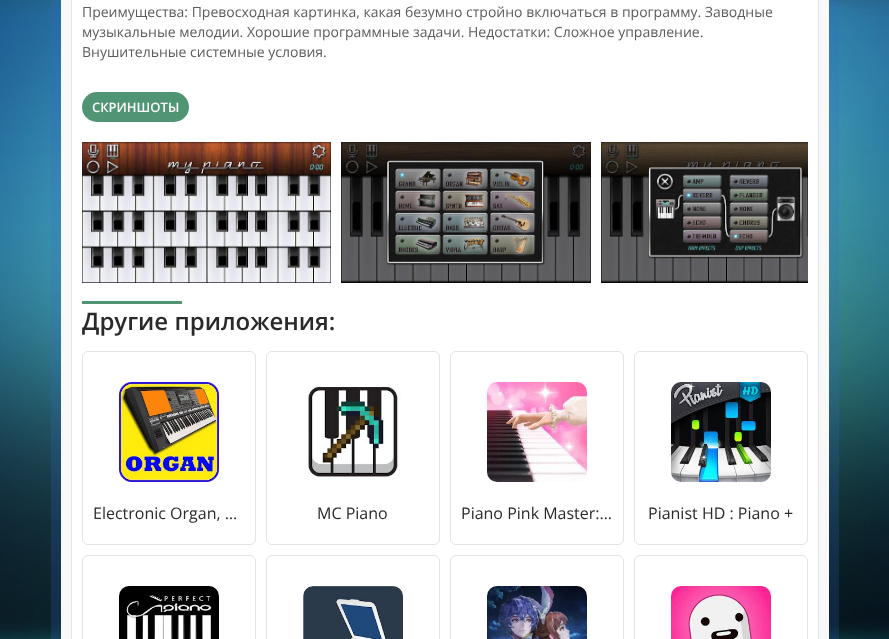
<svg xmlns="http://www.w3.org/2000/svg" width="889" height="639">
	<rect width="100%" height="100%" fill="#FFFFFF" />
	<image x="0" y="0" width="889" height="639" href="assets/img1.png" />
	<rect x="56" y="-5" width="778" height="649" fill="none" stroke="#316AC9" stroke-opacity="0.2" stroke-width="10" />
	<rect x="61" y="0" width="768" height="639" fill="#F8F8F8" />
	<rect x="71.5" y="-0.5" width="747" height="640" fill="#FFFFFF" stroke="#E1E5E6" />
	<g font-family="Open Sans" font-size="14" fill="#5C5C5C">
		<text x="82" y="17">Преимущества: Превосходная картинка, какая безумно стройно включаться в программу. Заводные</text>
		<text x="82" y="37">музыкальные мелодии. Хорошие программные задачи. Недостатки: Сложное управление.</text>
		<text x="82" y="57">Внушительные системные условия.</text>
	</g>
	<rect x="82" y="92" width="107" height="30" rx="15" fill="#4F9573" />
	<text x="92" y="112" font-family="Open Sans" font-size="13" font-weight="600" fill="#FFFFFF">СКРИНШОТЫ</text>
	<image x="82" y="142" width="249" height="141" href="assets/img2.png" />
	<image x="341" y="142" width="250" height="141" href="assets/img3.png" />
	<image x="601" y="142" width="207" height="141" href="assets/img4.png" />
	<rect x="82" y="301" width="100" height="3" fill="#4F9573" />
	<text x="82" y="330" font-family="Open Sans" font-size="24" font-weight="600" fill="#2A2A2A">Другие приложения:</text>
	<rect x="82.5" y="351.5" width="173" height="193" rx="5.5" fill="none" stroke="#E1E5E6" />
	<image x="119" y="382" width="100" height="100" href="assets/img5.png" />
	<text x="93" y="519" font-family="Open Sans" font-size="16" fill="#2A2A2A">Electronic Organ, …</text>
	<rect x="266.5" y="351.5" width="173" height="193" rx="5.5" fill="none" stroke="#E1E5E6" />
	<image x="307" y="386" width="94" height="94" href="assets/img6.png" />
	<text x="317" y="519" font-family="Open Sans" font-size="16" fill="#2A2A2A">MC Piano</text>
	<rect x="450.5" y="351.5" width="173" height="193" rx="5.5" fill="none" stroke="#E1E5E6" />
	<image x="487" y="382" width="100" height="100" href="assets/img7.png" />
	<text x="461" y="519" font-family="Open Sans" font-size="16" fill="#2A2A2A">Piano Pink Master:…</text>
	<rect x="634.5" y="351.5" width="173" height="193" rx="5.5" fill="none" stroke="#E1E5E6" />
	<image x="671" y="382" width="100" height="100" href="assets/img8.png" />
	<text x="648" y="519" font-family="Open Sans" font-size="16" fill="#2A2A2A">Pianist HD : Piano +</text>
	<rect x="82.5" y="555.5" width="173" height="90" rx="5.5" fill="none" stroke="#E1E5E6" />
	<image x="119" y="586" width="100" height="53" href="assets/img9.png" />
	<rect x="266.5" y="555.5" width="173" height="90" rx="5.5" fill="none" stroke="#E1E5E6" />
	<image x="303" y="586" width="100" height="53" href="assets/img10.png" />
	<rect x="450.5" y="555.5" width="173" height="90" rx="5.5" fill="none" stroke="#E1E5E6" />
	<image x="487" y="586" width="100" height="53" href="assets/img11.png" />
	<rect x="634.5" y="555.5" width="173" height="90" rx="5.5" fill="none" stroke="#E1E5E6" />
	<image x="671" y="586" width="100" height="53" href="assets/img12.png" />
</svg>
